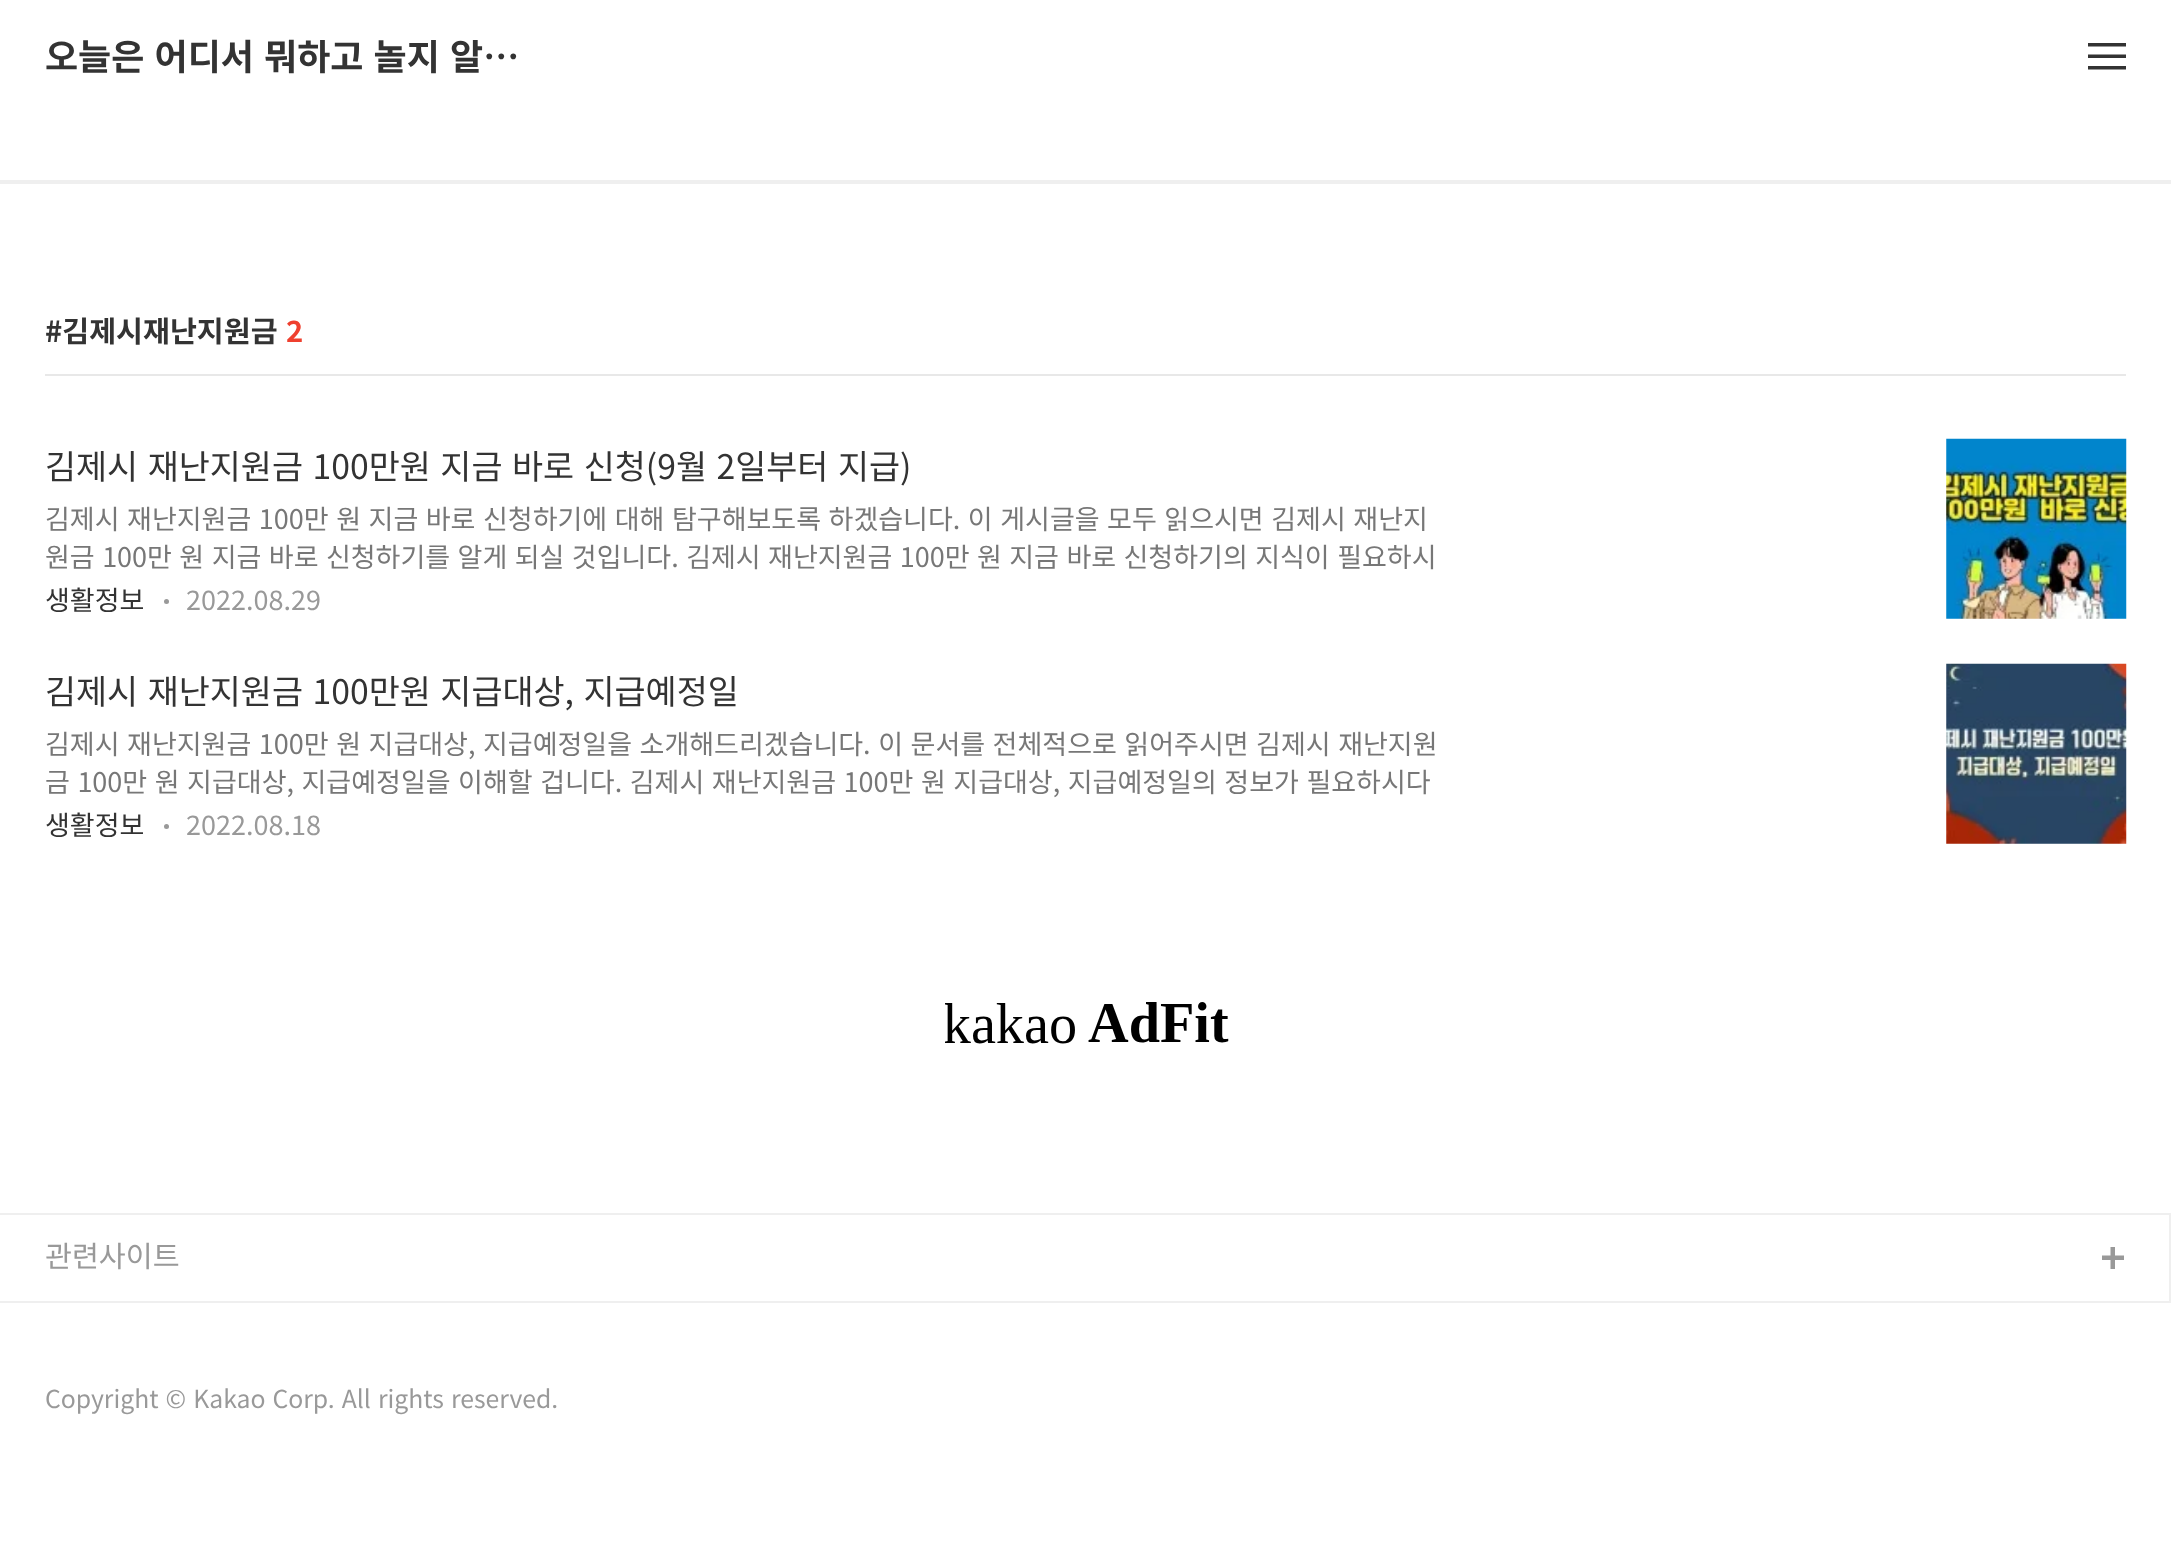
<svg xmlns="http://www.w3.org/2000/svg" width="2171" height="1552">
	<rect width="100%" height="100%" fill="#FFFFFF" />
	<rect x="0" y="180" width="2171" height="4" fill="#EFEFEF" />
	<text x="45" y="70" word-spacing="2" font-family="Noto Sans KR" font-size="36" font-weight="700" fill="#333333">오늘은 어디서 뭐하고 놀지 알…</text>
	<path d="M2088 43H2126V46.5H2088ZM2088 54.5H2126V58H2088ZM2088 66H2126V69.5H2088Z" fill="#333333" fill-rule="evenodd" />
	<rect x="45" y="374" width="2081" height="2" fill="#E8E8E8" />
	<text x="45" y="342" font-family="Noto Sans KR" font-size="29.25" font-weight="700" fill="#333333">#김제시재난지원금</text>
	<text x="286" y="342" font-family="Noto Sans KR" font-size="29.25" font-weight="700" fill="#EF402F">2</text>
	<text x="45" y="479" word-spacing="2" font-family="Noto Sans KR" font-size="33.75" fill="#333333">김제시 재난지원금 100만원 지금 바로 신청(9월 2일부터 지급)</text>
	<g font-family="Noto Sans KR" font-size="27" fill="#777777">
		<text x="45" y="529" word-spacing="1.5">김제시 재난지원금 100만 원 지금 바로 신청하기에 대해 탐구해보도록 하겠습니다. 이 게시글을 모두 읽으시면 김제시 재난지</text>
		<text x="45" y="567" word-spacing="1.4">원금 100만 원 지금 바로 신청하기를 알게 되실 것입니다. 김제시 재난지원금 100만 원 지금 바로 신청하기의 지식이 필요하시</text>
	</g>
	<text x="45" y="610" font-family="Noto Sans KR" font-size="27" fill="#333333">생활정보</text>
	<circle cx="166.5" cy="601.5" r="2.5" fill="#999999" />
	<text x="186" y="610" font-family="Noto Sans KR" font-size="27" fill="#999999">2022.08.29</text>
	<image x="1946" y="438" width="181" height="181" href="assets/img1.png" />
	<text x="45" y="704" word-spacing="2" font-family="Noto Sans KR" font-size="33.75" fill="#333333">김제시 재난지원금 100만원 지급대상, 지급예정일</text>
	<g font-family="Noto Sans KR" font-size="27" fill="#777777">
		<text x="45" y="754" word-spacing="1.5">김제시 재난지원금 100만 원 지급대상, 지급예정일을 소개해드리겠습니다. 이 문서를 전체적으로 읽어주시면 김제시 재난지원</text>
		<text x="45" y="792" word-spacing="1.5">금 100만 원 지급대상, 지급예정일을 이해할 겁니다. 김제시 재난지원금 100만 원 지급대상, 지급예정일의 정보가 필요하시다</text>
	</g>
	<text x="45" y="835" font-family="Noto Sans KR" font-size="27" fill="#333333">생활정보</text>
	<circle cx="166.5" cy="826.5" r="2.5" fill="#999999" />
	<text x="186" y="835" font-family="Noto Sans KR" font-size="27" fill="#999999">2022.08.18</text>
	<image x="1946" y="663" width="181" height="181" href="assets/img2.png" />
	<image x="945" y="1002" width="284" height="42" href="assets/img3.png" />
	<rect x="0" y="1213" width="2171" height="2" fill="#EFEFEF" />
	<image x="2102" y="1247" width="22" height="22" href="assets/img4.png" />
	<rect x="2169" y="1213" width="2" height="90" fill="#EFEFEF" />
	<rect x="0" y="1301" width="2171" height="2" fill="#EFEFEF" />
	<text x="45" y="1267" font-family="Noto Sans KR" font-size="29.25" fill="#999999">관련사이트</text>
	<text x="45" y="1408" word-spacing="1.5" font-family="Noto Sans KR" font-size="24.75" fill="#999999">Copyright © Kakao Corp. All rights reserved.</text>
</svg>
